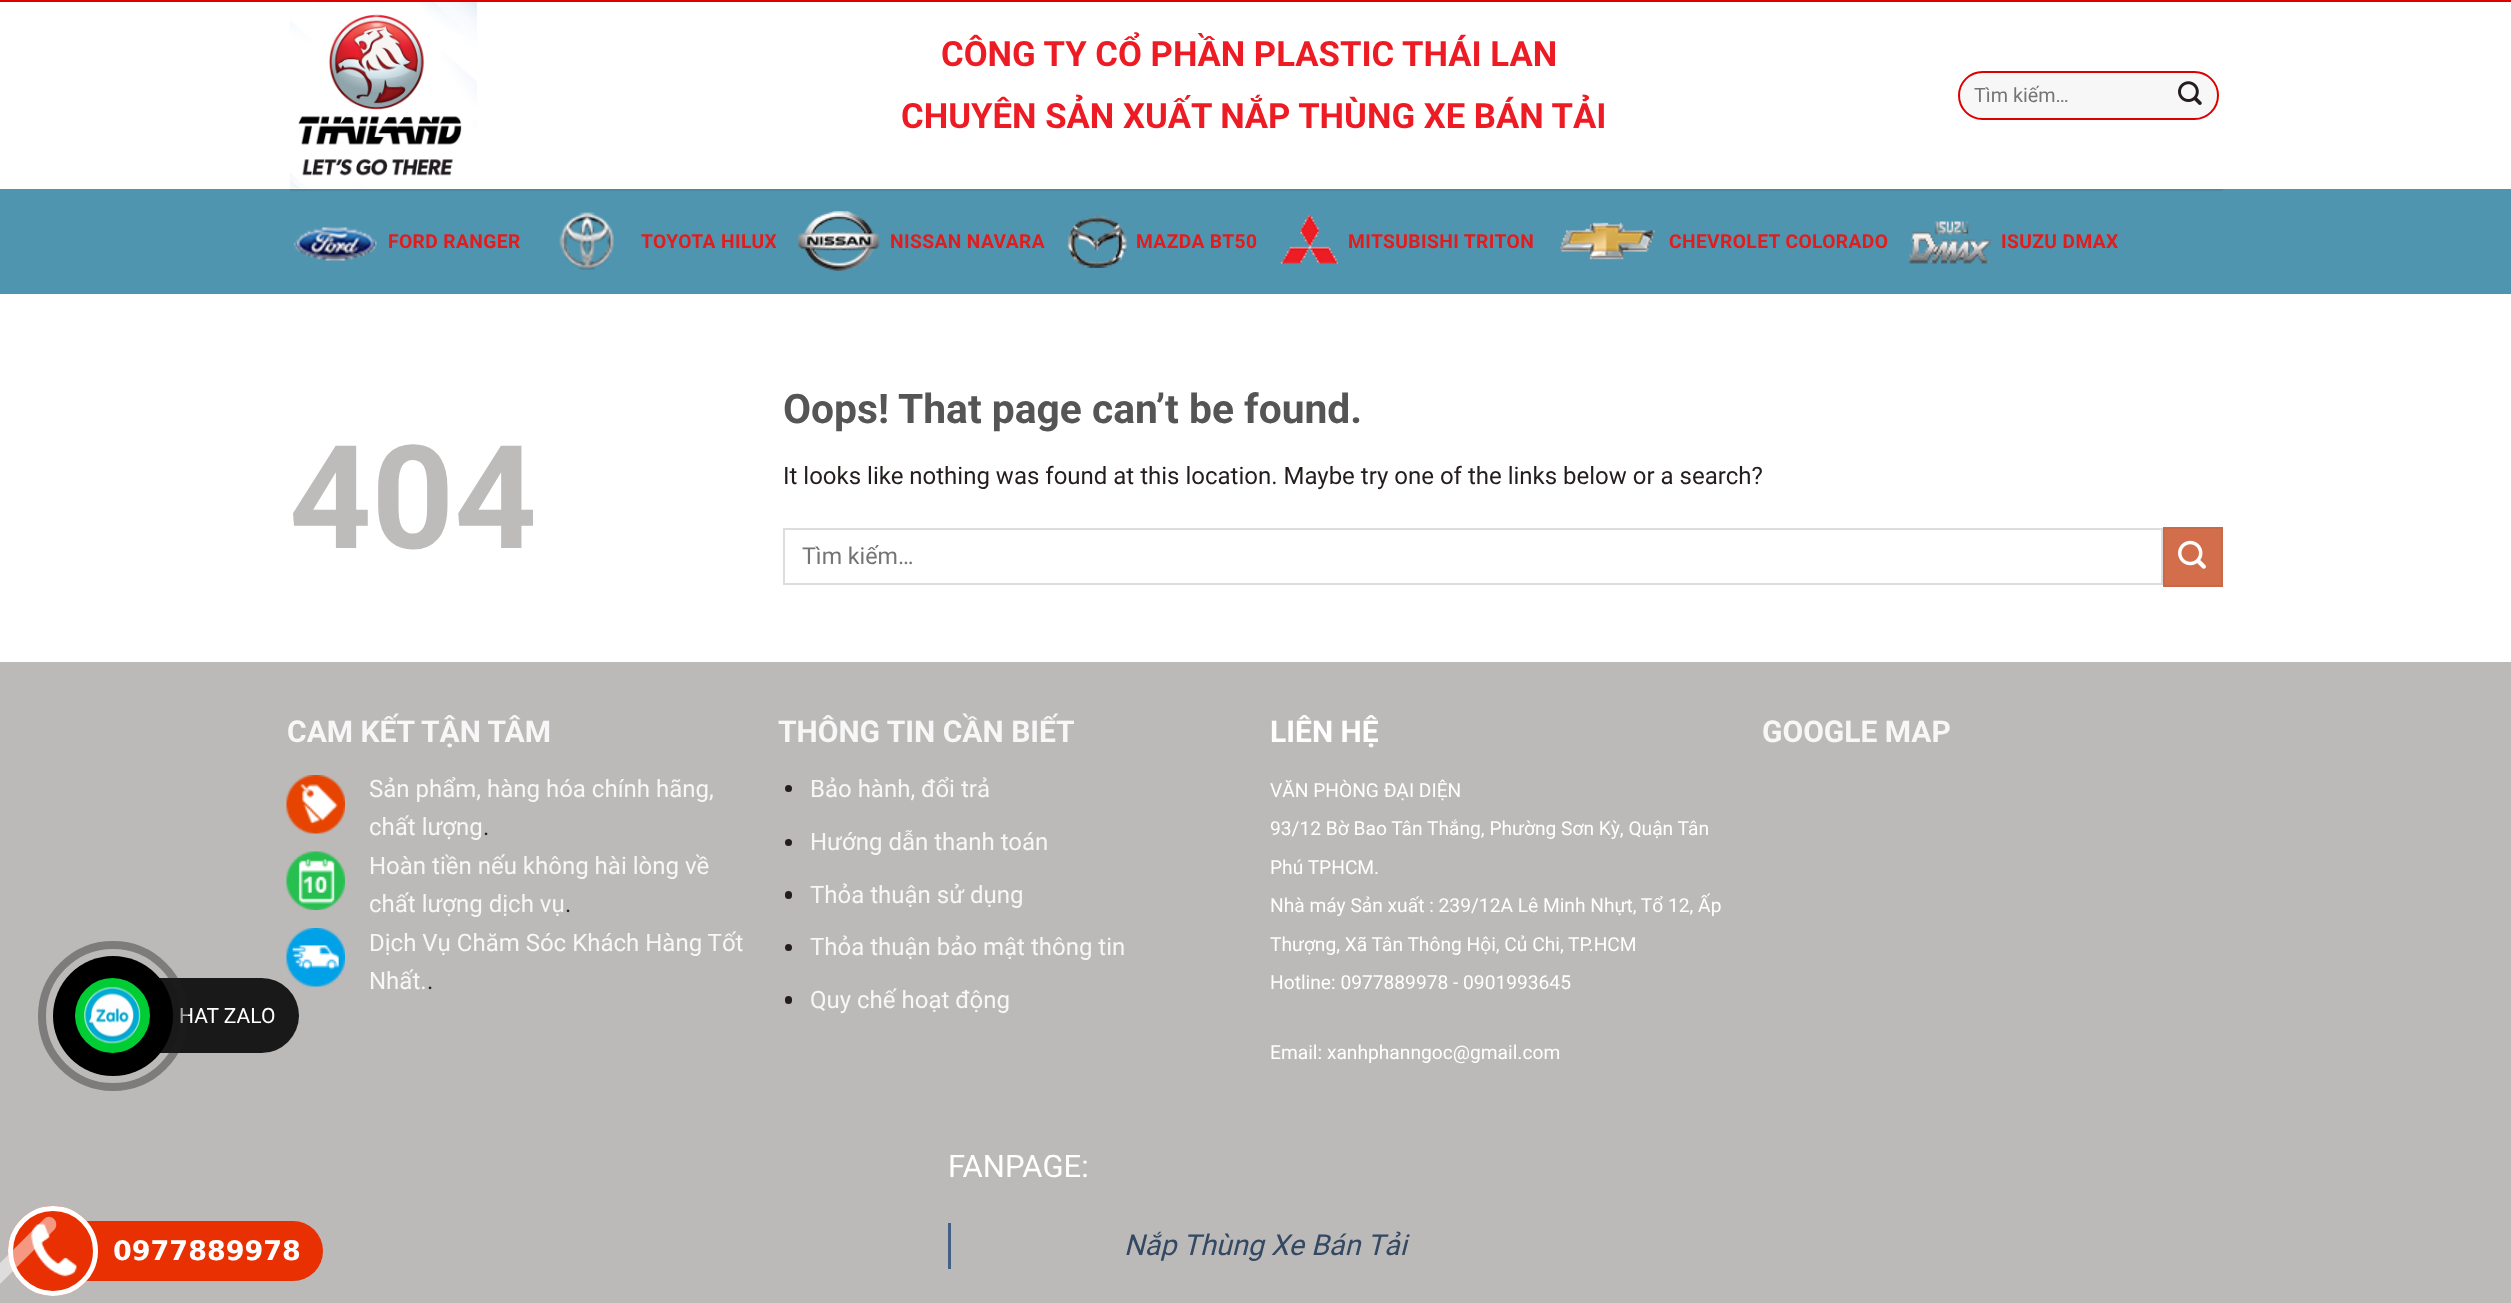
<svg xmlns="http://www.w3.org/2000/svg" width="2511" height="1303">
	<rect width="100%" height="100%" fill="#FFFFFF" />
	<rect x="0" y="662" width="2511" height="641" fill="#BCB9B9" />
	<image x="286" y="928" width="59" height="59" href="assets/img14.png" />
	<rect x="75" y="978" width="224" height="75" rx="37.5" fill="#1A1919" />
	<text x="179" y="1023" font-family="Roboto" font-size="21" fill="#FFFFFF">HAT ZALO</text>
	<circle cx="113" cy="1016" r="71" fill="none" stroke="#1E1E1E" stroke-opacity="0.4" stroke-width="8" />
	<circle cx="113" cy="1016" r="60" fill="#000000" />
	<circle cx="112.5" cy="1015.5" r="37.5" fill="#00CC33" />
	<image x="84" y="986" width="57" height="58" href="assets/img1.png" />
	<rect x="0" y="0" width="2511" height="2" fill="#DD0000" />
	<image x="289" y="2" width="188" height="187" href="assets/img2.png" />
	<g font-family="Roboto" font-size="34.7" font-weight="700" fill="#ED1C24">
		<text x="941" y="66">CÔNG TY CỔ PHẦN PLASTIC THÁI LAN</text>
		<text x="901" y="128">CHUYÊN SẢN XUẤT NẮP THÙNG XE BÁN TẢI</text>
	</g>
	<rect x="1959" y="72" width="259" height="47" rx="23.5" fill="#F7F7F7" stroke="#DD0000" stroke-width="2" />
	<text x="1974" y="102" font-family="Roboto" font-size="19.75" fill="#757575">Tìm kiếm…</text>
	<image x="2178" y="81" width="24" height="24" href="assets/img3.png" />
	<rect x="0" y="189" width="2511" height="105" fill="#4F95B0" />
	<rect x="290" y="189" width="1933" height="2" fill="#4B89A1" />
	<image x="293" y="227" width="84" height="34" href="assets/img4.png" />
	<text x="388" y="248" font-family="Roboto" font-size="19.2" font-weight="700" letter-spacing="0.4" fill="#E21C1C">FORD RANGER</text>
	<image x="559" y="212" width="55" height="58" href="assets/img5.png" />
	<text x="641" y="248" font-family="Roboto" font-size="19.2" font-weight="700" letter-spacing="0.4" fill="#E21C1C">TOYOTA HILUX</text>
	<image x="798" y="211" width="82" height="60" href="assets/img6.png" />
	<text x="890" y="248" font-family="Roboto" font-size="19.2" font-weight="700" letter-spacing="0.4" fill="#E21C1C">NISSAN NAVARA</text>
	<image x="1067" y="215" width="60" height="53" href="assets/img7.png" />
	<text x="1136" y="248" font-family="Roboto" font-size="19.2" font-weight="700" letter-spacing="0.4" fill="#E21C1C">MAZDA BT50</text>
	<image x="1280" y="215" width="58" height="49" href="assets/img8.png" />
	<text x="1348" y="248" font-family="Roboto" font-size="19.2" font-weight="700" letter-spacing="0.4" fill="#E21C1C">MITSUBISHI TRITON</text>
	<image x="1559" y="222" width="96" height="38" href="assets/img9.png" />
	<text x="1669" y="248" font-family="Roboto" font-size="19.2" font-weight="700" letter-spacing="0.4" fill="#E21C1C">CHEVROLET COLORADO</text>
	<image x="1909" y="221" width="83" height="43" href="assets/img10.png" />
	<text x="2001" y="248" font-family="Roboto" font-size="19.2" font-weight="700" letter-spacing="0.4" fill="#E21C1C">ISUZU DMAX</text>
	<text x="289" y="548" font-family="Roboto" font-size="144" font-weight="700" fill="#BEBBBB">404</text>
	<text x="783" y="423" font-family="Roboto" font-size="40.75" font-weight="700" fill="#555555">Oops! That page can’t be found.</text>
	<text x="783" y="484" font-family="Roboto" font-size="24" fill="#251D1D">It looks like nothing was found at this location. Maybe try one of the links below or a search?</text>
	<rect x="784" y="529" width="1378" height="55" fill="none" stroke="#DDDDDD" stroke-width="2" />
	<text x="802" y="564" font-family="Roboto" font-size="23.25" fill="#757575">Tìm kiếm…</text>
	<rect x="2164" y="528" width="58" height="58" fill="#D26E4B" stroke="#C86947" stroke-width="2" />
	<image x="2178" y="540" width="28" height="29" href="assets/img11.png" />
	<text x="287" y="742" font-family="Roboto" font-size="30" font-weight="700" fill="#F7F7F7">CAM KẾT TẬN TÂM</text>
	<image x="286" y="775" width="59" height="59" href="assets/img12.png" />
	<g font-family="Roboto" font-size="24" fill="#F7F7F7">
		<text x="369" y="797">Sản phẩm, hàng hóa chính hãng,</text>
		<text x="369" y="835">chất lượng</text>
	</g>
	<text x="483" y="835" font-family="Roboto" font-size="24" fill="#251D1D">.</text>
	<image x="286" y="851" width="59" height="59" href="assets/img13.png" />
	<g font-family="Roboto" font-size="24" fill="#F7F7F7">
		<text x="369" y="874">Hoàn tiền nếu không hài lòng về</text>
		<text x="369" y="912">chất lượng dịch vụ</text>
	</g>
	<text x="565" y="912" font-family="Roboto" font-size="24" fill="#251D1D">.</text>
	<g font-family="Roboto" font-size="24" fill="#F7F7F7">
		<text x="369" y="951">Dịch Vụ Chăm Sóc Khách Hàng Tốt</text>
		<text x="369" y="989">Nhất.</text>
	</g>
	<text x="427" y="989" font-family="Roboto" font-size="24" fill="#251D1D">.</text>
	<text x="778" y="742" font-family="Roboto" font-size="30" font-weight="700" fill="#F7F7F7">THÔNG TIN CẦN BIẾT</text>
	<circle cx="788.5" cy="788.5" r="3.5" fill="#251D1D" />
	<text x="810" y="797" font-family="Roboto" font-size="24" fill="#F7F7F7">Bảo hành, đổi trả</text>
	<circle cx="788.5" cy="842.5" r="3.5" fill="#251D1D" />
	<text x="810" y="850" font-family="Roboto" font-size="24" fill="#F7F7F7">Hướng dẫn thanh toán</text>
	<rect x="785" y="891" width="7" height="8" rx="3.5" fill="#251D1D" />
	<text x="810" y="903" font-family="Roboto" font-size="24" fill="#F7F7F7">Thỏa thuận sử dụng</text>
	<circle cx="788.5" cy="947.5" r="3.5" fill="#251D1D" />
	<text x="810" y="955" font-family="Roboto" font-size="24" fill="#F7F7F7">Thỏa thuận bảo mật thông tin</text>
	<rect x="785" y="996" width="7" height="8" rx="3.5" fill="#251D1D" />
	<text x="810" y="1008" font-family="Roboto" font-size="24" fill="#F7F7F7">Quy chế hoạt động</text>
	<text x="1270" y="742" font-family="Roboto" font-size="30" font-weight="700" fill="#FFFFFF">LIÊN HỆ</text>
	<g font-family="Roboto" font-size="19.2" fill="#FFFFFF">
		<text x="1270" y="797">VĂN PHÒNG ĐẠI DIỆN</text>
		<text x="1270" y="835">93/12 Bờ Bao Tân Thắng, Phường Sơn Kỳ, Quận Tân</text>
		<text x="1270" y="874">Phú TPHCM.</text>
		<text x="1270" y="912">Nhà máy Sản xuất : 239/12A Lê Minh Nhựt, Tổ 12, Ấp</text>
		<text x="1270" y="951">Thượng, Xã Tân Thông Hội, Củ Chi, TP.HCM</text>
		<text x="1270" y="989">Hotline: 0977889978 - 0901993645</text>
		<text x="1270" y="1059">Email: xanhphanngoc@gmail.com</text>
	</g>
	<text x="1762" y="742" font-family="Roboto" font-size="30" font-weight="700" fill="#F7F7F7">GOOGLE MAP</text>
	<text x="948" y="1177" font-family="Roboto" font-size="31" fill="#FFFFFF">FANPAGE:</text>
	<rect x="948" y="1223" width="3" height="46" fill="#446084" />
	<text x="1124" y="1255" font-family="Roboto" font-size="28.75" font-style="italic" fill="#334862">Nắp Thùng Xe Bán Tải</text>
	<rect x="8" y="1221" width="315" height="60" rx="30" fill="#E83002" />
	<circle cx="53" cy="1251" r="45" fill="#E83002" />
	<image x="31" y="1223" width="46" height="54" href="assets/img15.png" />
	<circle cx="53" cy="1251" r="42.5" fill="none" stroke="#FFFFFF" stroke-width="5" />
	<path d="M-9 1272L44 1219C47 1216 51 1216 54 1219C57 1222 57 1227 54 1230L1 1283C-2 1286-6 1286-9 1283C-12 1280-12 1275-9 1272Z" fill="#FFFFFF" fill-opacity="0.5" />
	<text x="113" y="1260" font-family="DejaVu Sans" font-size="27" font-weight="700" fill="#FFFFFF">0977889978</text>
</svg>
